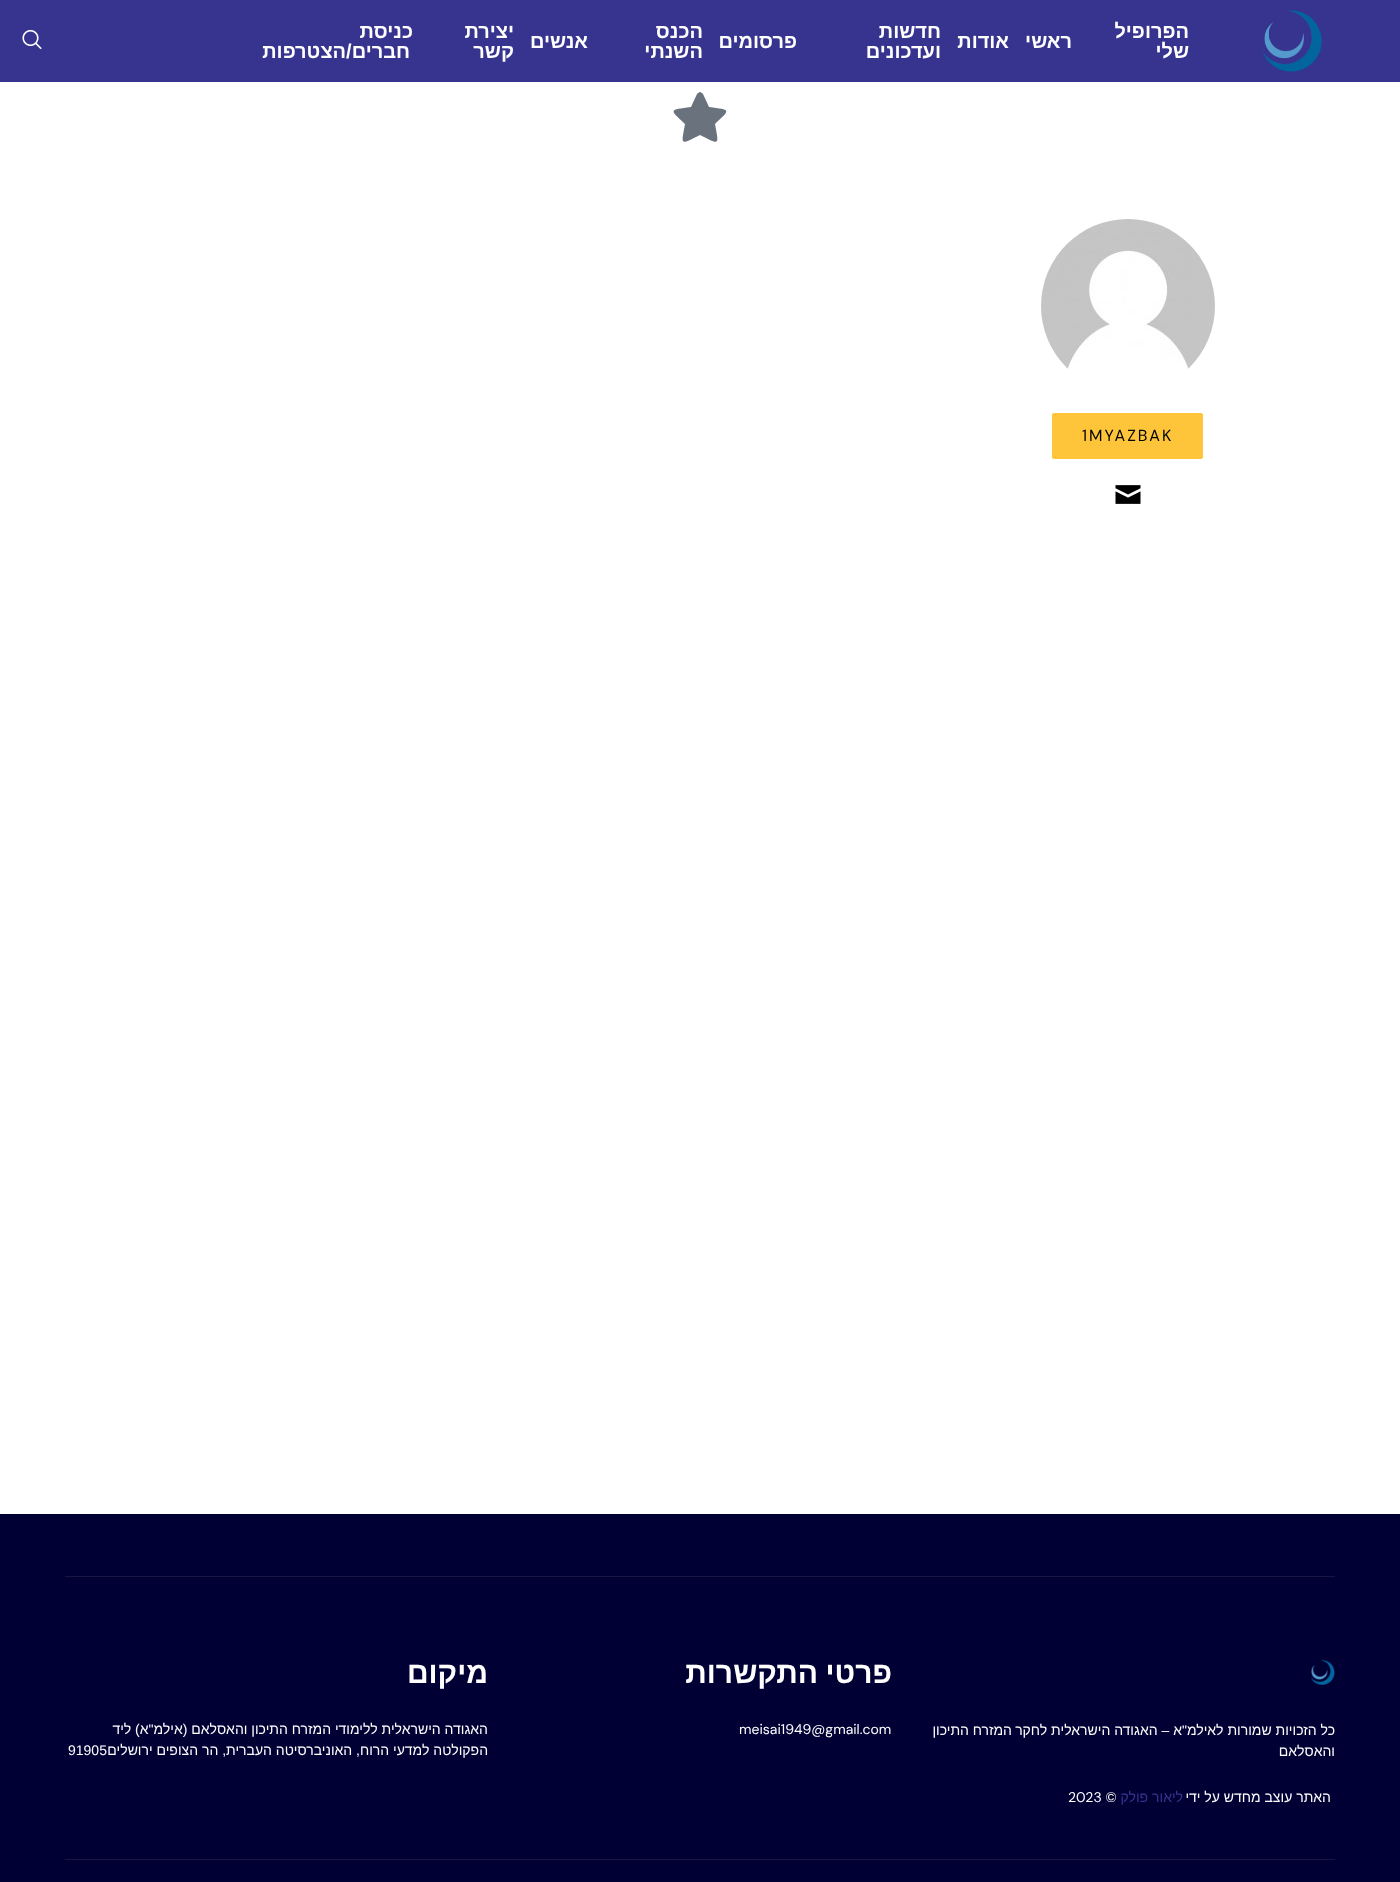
<svg xmlns="http://www.w3.org/2000/svg" width="1400" height="1882">
	<rect width="100%" height="100%" fill="#FFFFFF" />
	<rect x="0" y="0" width="1400" height="82" fill="#36348E" />
	<image x="1262" y="10" width="60" height="62" href="assets/img1.png" />
	<g font-family="Liberation Sans" font-size="20" font-weight="700" direction="rtl" fill="#FFFFFF">
		<text x="1189" y="38">הפרופיל</text>
		<text x="1189" y="58">שלי</text>
		<text x="1072" y="48">ראשי</text>
		<text x="1009" y="48">אודות</text>
		<text x="941" y="38">חדשות</text>
		<text x="941" y="58">ועדכונים</text>
		<text x="797" y="48">פרסומים</text>
		<text x="703" y="38">הכנס</text>
		<text x="703" y="58">השנתי</text>
		<text x="588" y="48">אנשים</text>
		<text x="514" y="38">יצירת</text>
		<text x="514" y="58">קשר</text>
		<text x="413" y="38">כניסת</text>
		<text x="410" y="58">חברים/הצטרפות</text>
	</g>
	<image x="22" y="29" width="20" height="20" href="assets/img2.png" />
	<path d="M697 94C698 93 699 92 700 92C701 92 702 93 703 94L709 107C731 110 731 109 715 124C719 146 720 145 700 135C680 145 681 146 685 124C669 109 669 110 691 107Z" fill="#69727D" />
	<image x="1041" y="219" width="174" height="150" href="assets/img3.png" />
	<rect x="1052" y="413" width="151" height="46" rx="2" fill="#FFC53A" />
	<text x="1082" y="441" font-family="DM Sans" font-size="16" letter-spacing="2" fill="#000000">1MYAZBAK</text>
	<image x="1115" y="485" width="26" height="19" href="assets/img4.png" />
	<rect x="0" y="1514" width="1400" height="368" fill="#010035" />
	<rect x="65" y="1576" width="1270" height="1" fill="#171645" />
	<text x="892" y="1683" word-spacing="-1" font-family="Liberation Sans" font-size="30" font-weight="700" direction="rtl" fill="#FFFFFF">פרטי התקשרות</text>
	<text x="739" y="1734" font-family="DM Sans" font-size="14" fill="#FFFFFF">meisai1949@gmail.com</text>
	<text x="488" y="1683" font-family="Liberation Sans" font-size="30" font-weight="700" direction="rtl" fill="#FFFFFF">מיקום</text>
	<g font-family="Liberation Sans" font-size="14" direction="rtl" fill="#FFFFFF">
		<text x="488" y="1734">האגודה הישראלית ללימודי המזרח התיכון והאסלאם (אילמ"א) ליד</text>
		<text x="488" y="1755">הפקולטה למדעי הרוח, האוניברסיטה העברית, הר הצופים ירושלים</text>
	</g>
	<text x="68" y="1755" font-family="Liberation Sans" font-size="14" fill="#FFFFFF">91905</text>
	<image x="1311" y="1660" width="24" height="25" href="assets/img5.png" />
	<g font-family="Liberation Sans" font-size="14" direction="rtl" fill="#FFFFFF">
		<text x="1335" y="1735">כל הזכויות שמורות לאילמ"א – האגודה הישראלית לחקר</text>
		<text x="1012" y="1735">המזרח</text>
		<text x="969" y="1735">התיכון</text>
		<text x="1335" y="1756">והאסלאם</text>
		<text x="1331" y="1802">האתר עוצב מחדש על ידי</text>
	</g>
	<text x="1183" y="1802" font-family="Liberation Sans" font-size="14" direction="rtl" fill="#36348E">ליאור פולק</text>
	<text x="1068" y="1802" font-family="DM Sans" font-size="14" fill="#FFFFFF">2023 ©</text>
	<rect x="65" y="1859" width="1270" height="1" fill="#171645" />
	<rect x="102" y="1696" width="1" height="1" fill="#070536" />
</svg>
